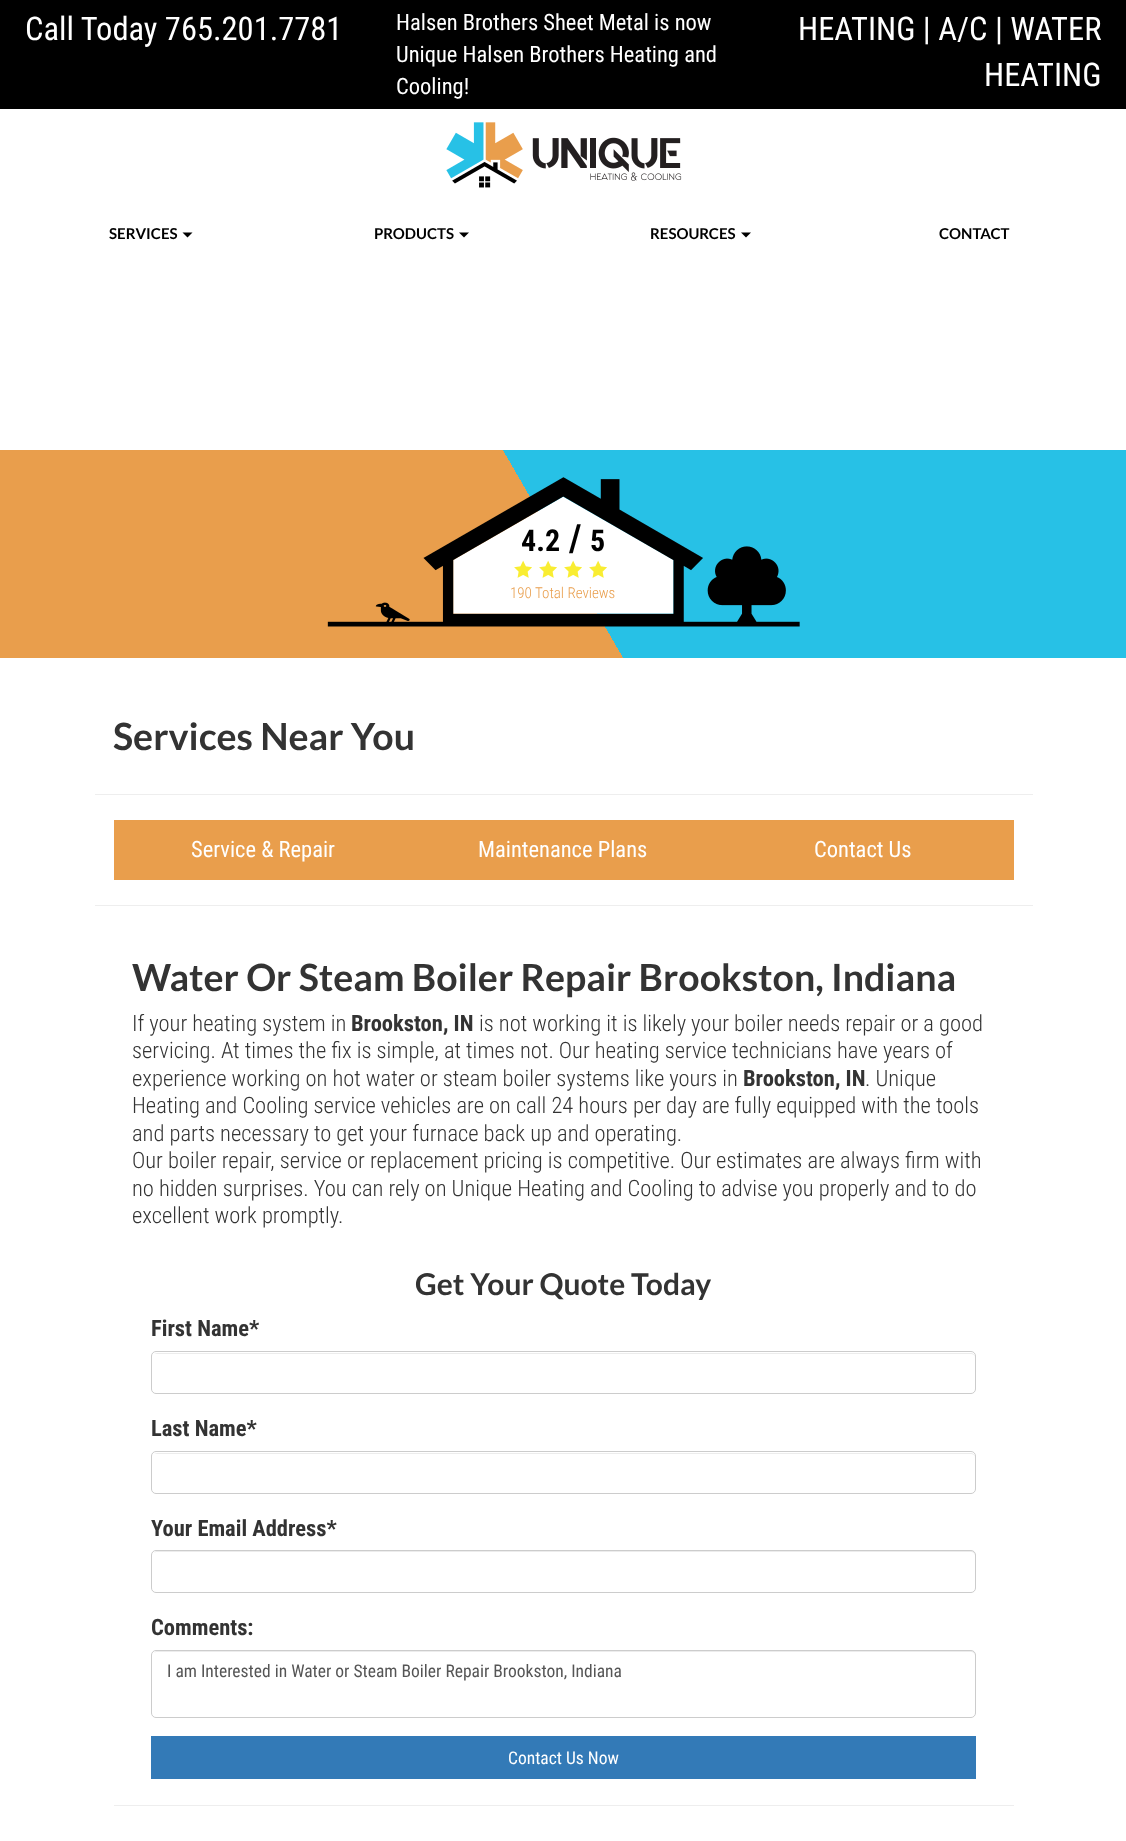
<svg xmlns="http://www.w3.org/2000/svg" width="1126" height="1841">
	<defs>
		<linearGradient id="g1" gradientUnits="userSpaceOnUse" x1="96" y1="824" x2="1030" y2="284"><stop offset="0.5" stop-color="#E99E4C" /><stop offset="0.5" stop-color="#27C1E6" /></linearGradient>
	</defs>
	<rect width="100%" height="100%" fill="#FFFFFF" />
	<rect x="0" y="0" width="1126" height="109" fill="#000000" />
	<text x="25" y="40" font-family="Roboto Condensed" font-size="32.5" fill="#FFFFFF">Call Today 765.201.7781</text>
	<g font-family="Roboto Condensed" font-size="22.5" fill="#FFFFFF">
		<text x="396" y="30">Halsen Brothers Sheet Metal is now</text>
		<text x="396" y="62">Unique Halsen Brothers Heating and</text>
		<text x="396" y="94">Cooling!</text>
	</g>
	<g font-family="Roboto Condensed" font-size="32.5" fill="#FFFFFF">
		<text x="798" y="40">HEATING | A/C | WATER</text>
		<text x="984" y="86">HEATING</text>
	</g>
	<image x="446" y="122" width="236" height="66" href="assets/img1.png" />
	<text x="109" y="239" font-family="Lato" font-size="15" font-weight="700" fill="#000000">SERVICES</text>
	<path d="M182.5 232.5H192.5L187.5 237.5Z" fill="#000000" />
	<text x="374" y="239" font-family="Lato" font-size="15" font-weight="700" fill="#000000">PRODUCTS</text>
	<path d="M459 232.5H469L464 237.5Z" fill="#000000" />
	<text x="650" y="239" font-family="Lato" font-size="15" font-weight="700" fill="#000000">RESOURCES</text>
	<path d="M741 232.5H751L746 237.5Z" fill="#000000" />
	<text x="939" y="239" font-family="Lato" font-size="15" font-weight="700" fill="#000000">CONTACT</text>
	<rect x="0" y="450" width="1126" height="208" fill="url(#g1)" />
	<image x="327" y="477" width="473" height="150" href="assets/img2.png" />
	<text x="521" y="551" font-family="Roboto Condensed" font-size="30" font-weight="700" fill="#000000">4.2</text>
	<text x="569" y="551" font-family="Roboto Condensed" font-size="37.5" font-weight="700" fill="#000000">/</text>
	<text x="590" y="551" font-family="Roboto Condensed" font-size="30" font-weight="700" fill="#000000">5</text>
	<image x="514" y="560" width="18" height="18" href="assets/img3.png" />
	<image x="539" y="560" width="18" height="18" href="assets/img3.png" />
	<image x="564" y="560" width="18" height="18" href="assets/img3.png" />
	<image x="589" y="560" width="18" height="18" href="assets/img3.png" />
	<text x="510" y="598" font-family="Roboto Condensed" font-size="15" font-weight="300" fill="#E99E4C">190 Total Reviews</text>
	<text x="113" y="750" font-family="Lato" font-size="37.5" font-weight="700" fill="#333333">Services Near You</text>
	<rect x="95" y="794" width="938" height="1" fill="#EEEEEE" />
	<rect x="114" y="820" width="900" height="60" fill="#E99E4C" />
	<g font-family="Roboto Condensed" font-size="22.5" fill="#FFFFFF">
		<text x="191" y="857">Service &amp; Repair</text>
		<text x="478" y="857">Maintenance Plans</text>
		<text x="814" y="857">Contact Us</text>
	</g>
	<rect x="95" y="905" width="938" height="1" fill="#EEEEEE" />
	<text x="132" y="991" font-family="Lato" font-size="37.5" font-weight="700" fill="#333333">Water Or Steam Boiler Repair Brookston, Indiana</text>
	<text x="132" y="1031" font-family="Roboto Condensed" font-size="22.5" font-weight="300" fill="#333333">If your heating system in</text>
	<text x="351" y="1031" font-family="Roboto Condensed" font-size="22.5" font-weight="700" fill="#333333">Brookston, IN</text>
	<g font-family="Roboto Condensed" font-size="22.5" font-weight="300" fill="#333333">
		<text x="479" y="1031">is not working it is likely your boiler needs repair or a good</text>
		<text x="132" y="1058">servicing. At times the fix is simple, at times not. Our heating service technicians have years of</text>
		<text x="132" y="1086">experience working on hot water or steam boiler systems like yours in</text>
	</g>
	<text x="743" y="1086" font-family="Roboto Condensed" font-size="22.5" font-weight="700" fill="#333333">Brookston, IN</text>
	<g font-family="Roboto Condensed" font-size="22.5" font-weight="300" fill="#333333">
		<text x="865" y="1086">. Unique</text>
		<text x="132" y="1113">Heating and Cooling service vehicles are on call 24 hours per day are fully equipped with the tools</text>
		<text x="132" y="1141">and parts necessary to get your furnace back up and operating.</text>
		<text x="132" y="1168">Our boiler repair, service or replacement pricing is competitive. Our estimates are always firm with</text>
		<text x="132" y="1196">no hidden surprises. You can rely on Unique Heating and Cooling to advise you properly and to do</text>
		<text x="132" y="1223">excellent work promptly.</text>
	</g>
	<text x="415" y="1295" font-family="Lato" font-size="30" font-weight="700" fill="#333333">Get Your Quote Today</text>
	<text x="151" y="1336" font-family="Roboto Condensed" font-size="22.5" font-weight="700" fill="#333333">First Name*</text>
	<path d="M156 1354H971C973 1354 975 1355 975 1358V1357C975 1355 973 1353 971 1353H157C156 1353 155 1354 154 1354Z" fill="#ECECEC" />
	<rect x="151.5" y="1351.5" width="824" height="42" rx="4.5" fill="none" stroke="#CCCCCC" />
	<text x="151" y="1436" font-family="Roboto Condensed" font-size="22.5" font-weight="700" fill="#333333">Last Name*</text>
	<path d="M156 1454H971C973 1454 975 1455 975 1458V1457C975 1455 973 1453 971 1453H157C156 1453 155 1454 154 1454Z" fill="#ECECEC" />
	<rect x="151.5" y="1451.5" width="824" height="42" rx="4.5" fill="none" stroke="#CCCCCC" />
	<text x="151" y="1536" font-family="Roboto Condensed" font-size="22.5" font-weight="700" fill="#333333">Your Email Address*</text>
	<path d="M156 1552H971C973 1552 975 1554 975 1556C975 1553 974 1551 971 1551H156L154 1553Z" fill="#ECECEC" />
	<rect x="151.5" y="1550.5" width="824" height="42" rx="4.5" fill="none" stroke="#CCCCCC" />
	<text x="151" y="1635" font-family="Roboto Condensed" font-size="22.5" font-weight="700" fill="#333333">Comments:</text>
	<path d="M156 1652H971C973 1652 975 1654 975 1656C975 1653 974 1651 971 1651H156L154 1653Z" fill="#ECECEC" />
	<rect x="151.5" y="1650.5" width="824" height="67" rx="4.5" fill="none" stroke="#CCCCCC" />
	<text x="167" y="1677" font-family="Roboto Condensed" font-size="17.5" fill="#555555">I am Interested in Water or Steam Boiler Repair Brookston, Indiana</text>
	<rect x="151" y="1736" width="825" height="43" fill="#337AB7" />
	<text x="508" y="1764" font-family="Roboto Condensed" font-size="17.5" fill="#FFFFFF">Contact Us Now</text>
	<rect x="114" y="1805" width="900" height="1" fill="#EEEEEE" />
</svg>
